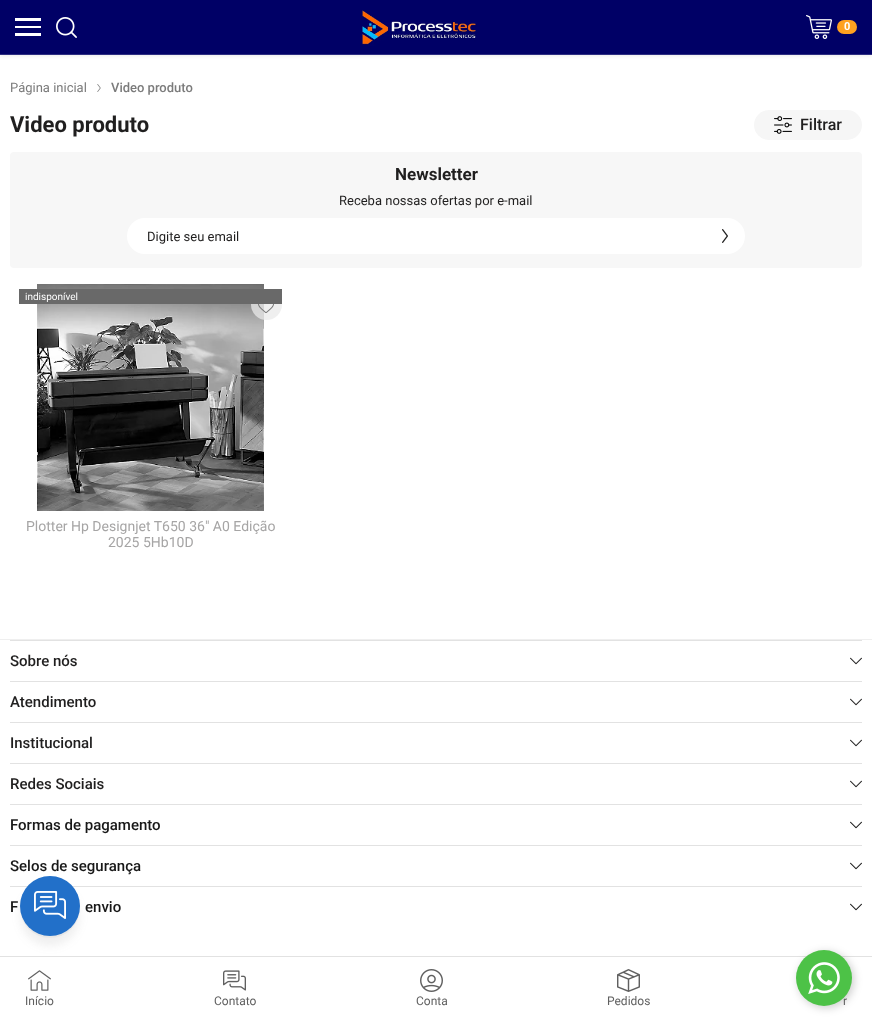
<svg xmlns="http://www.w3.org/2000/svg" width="872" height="1026">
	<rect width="100%" height="100%" fill="#FFFFFF" />
	<rect x="0" y="1" width="872" height="55" fill="#525252" fill-opacity="0.13" filter="blur(2px)" />
	<rect x="0" y="0" width="872" height="54" fill="#000066" />
	<rect x="0" y="54" width="872" height="1" fill="#2D2D80" />
	<rect x="15" y="33" width="26" height="3" fill="#FFFFFF" />
	<rect x="15" y="26" width="26" height="2" fill="#FFFFFF" />
	<rect x="15" y="18" width="26" height="3" fill="#FFFFFF" />
	<image x="56" y="17" width="21" height="21" href="assets/img1.png" />
	<image x="362" y="10" width="115" height="36" href="assets/img2.png" />
	<image x="806" y="15" width="26" height="24" href="assets/img3.png" />
	<rect x="837" y="20" width="20" height="14" rx="7" fill="#FFA120" />
	<text x="844" y="30" font-family="Roboto" font-size="11" font-weight="700" fill="#FFFFFF">0</text>
	<text x="10" y="92" font-family="Roboto" font-size="13" fill="#7B7B7B">Página inicial</text>
	<image x="97" y="84" width="4" height="8" href="assets/img4.png" />
	<text x="111" y="92" font-family="Roboto" font-size="13" font-weight="500" fill="#7B7B7B">Video produto</text>
	<text x="10" y="132" font-family="Roboto" font-size="22" font-weight="700" fill="#201F1F">Video produto</text>
	<rect x="754" y="110" width="108" height="30" rx="15" fill="#F6F6F6" />
	<image x="774" y="116" width="18" height="18" href="assets/img5.png" />
	<text x="800" y="130" font-family="Roboto" font-size="16" font-weight="500" fill="#201F1F">Filtrar</text>
	<rect x="10" y="152" width="852" height="116" rx="4" fill="#F7F7F7" />
	<text x="395" y="180" font-family="Roboto" font-size="17" font-weight="700" fill="#201F1F">Newsletter</text>
	<text x="339" y="205" font-family="Roboto" font-size="13" fill="#201F1F">Receba nossas ofertas por e-mail</text>
	<rect x="127" y="218" width="618" height="36" rx="18" fill="#FFFFFF" />
	<text x="147" y="241" font-family="Roboto" font-size="13" fill="#201F1F">Digite seu email</text>
	<image x="722" y="229" width="6" height="14" href="assets/img6.png" />
	<image x="37" y="284" width="227" height="227" href="assets/img7.png" />
	<circle cx="266.5" cy="304.5" r="15.5" fill="#EAEAEA" fill-opacity="0.75" />
	<image x="258" y="304" width="16" height="9" href="assets/img8.png" />
	<rect x="19" y="289" width="263" height="15" fill="#696969" />
	<text x="25" y="300" font-family="Roboto" font-size="10" fill="#FFFFFF">indisponível</text>
	<g font-family="Roboto" font-size="14" fill="#A6A5A5">
		<text x="26" y="531">Plotter Hp Designjet T650 36" A0 Edição</text>
		<text x="108" y="547">2025 5Hb10D</text>
	</g>
	<rect x="0" y="639" width="872" height="1" fill="#EFEFEF" />
	<rect x="10" y="640" width="852" height="1" fill="#E2E2E2" />
	<text x="10" y="666" font-family="Roboto" font-size="15" font-weight="500" fill="#201F1F">Sobre nós</text>
	<image x="850" y="657" width="12" height="8" href="assets/img9.png" />
	<rect x="10" y="681" width="852" height="1" fill="#E2E2E2" />
	<text x="10" y="707" font-family="Roboto" font-size="15" font-weight="500" fill="#201F1F">Atendimento</text>
	<image x="850" y="698" width="12" height="8" href="assets/img9.png" />
	<rect x="10" y="722" width="852" height="1" fill="#E2E2E2" />
	<text x="10" y="748" font-family="Roboto" font-size="15" font-weight="500" fill="#201F1F">Institucional</text>
	<image x="850" y="739" width="12" height="8" href="assets/img9.png" />
	<rect x="10" y="763" width="852" height="1" fill="#E2E2E2" />
	<text x="10" y="789" font-family="Roboto" font-size="15" font-weight="500" fill="#201F1F">Redes Sociais</text>
	<image x="850" y="780" width="12" height="8" href="assets/img9.png" />
	<rect x="10" y="804" width="852" height="1" fill="#E2E2E2" />
	<text x="10" y="830" font-family="Roboto" font-size="15" font-weight="500" fill="#181818">Formas de pagamento</text>
	<image x="850" y="821" width="12" height="8" href="assets/img10.png" />
	<rect x="10" y="845" width="852" height="1" fill="#E2E2E2" />
	<text x="10" y="871" font-family="Roboto" font-size="15" font-weight="500" fill="#181818">Selos de segurança</text>
	<image x="850" y="862" width="12" height="8" href="assets/img10.png" />
	<rect x="10" y="886" width="852" height="1" fill="#E2E2E2" />
	<g font-family="Roboto" font-size="15" font-weight="500" fill="#181818">
		<text x="10" y="912">F</text>
		<text x="85" y="912">envio</text>
	</g>
	<image x="850" y="903" width="12" height="8" href="assets/img10.png" />
	<rect x="20" y="886" width="60" height="60" rx="30" fill="#676767" fill-opacity="0.1" filter="blur(4px)" />
	<rect x="20" y="878" width="60" height="60" rx="30" fill="#000000" fill-opacity="0.04" filter="blur(0.5px)" />
	<circle cx="50" cy="906" r="30" fill="#2270C9" />
	<image x="34" y="891" width="32" height="28" href="assets/img11.png" />
	<rect x="0" y="956" width="872" height="1" fill="#E2E2E2" />
	<rect x="798" y="952" width="56" height="56" rx="28" fill="#000000" fill-opacity="0.2" filter="blur(4px)" />
	<text x="843" y="1005" font-family="Roboto" font-size="12" fill="#606060">r</text>
	<circle cx="824" cy="978" r="28" fill="#4DC247" />
	<image x="808" y="962" width="32" height="32" href="assets/img12.png" />
	<image x="28" y="970" width="23" height="21" href="assets/img13.png" />
	<text x="25" y="1005" font-family="Roboto" font-size="12" fill="#606060">Início</text>
	<image x="223" y="970" width="23" height="21" href="assets/img14.png" />
	<text x="214" y="1005" font-family="Roboto" font-size="12" fill="#606060">Contato</text>
	<image x="420" y="969" width="23" height="23" href="assets/img15.png" />
	<text x="416" y="1005" font-family="Roboto" font-size="12" fill="#606060">Conta</text>
	<image x="617" y="969" width="23" height="23" href="assets/img16.png" />
	<text x="607" y="1005" font-family="Roboto" font-size="12" fill="#606060">Pedidos</text>
</svg>
